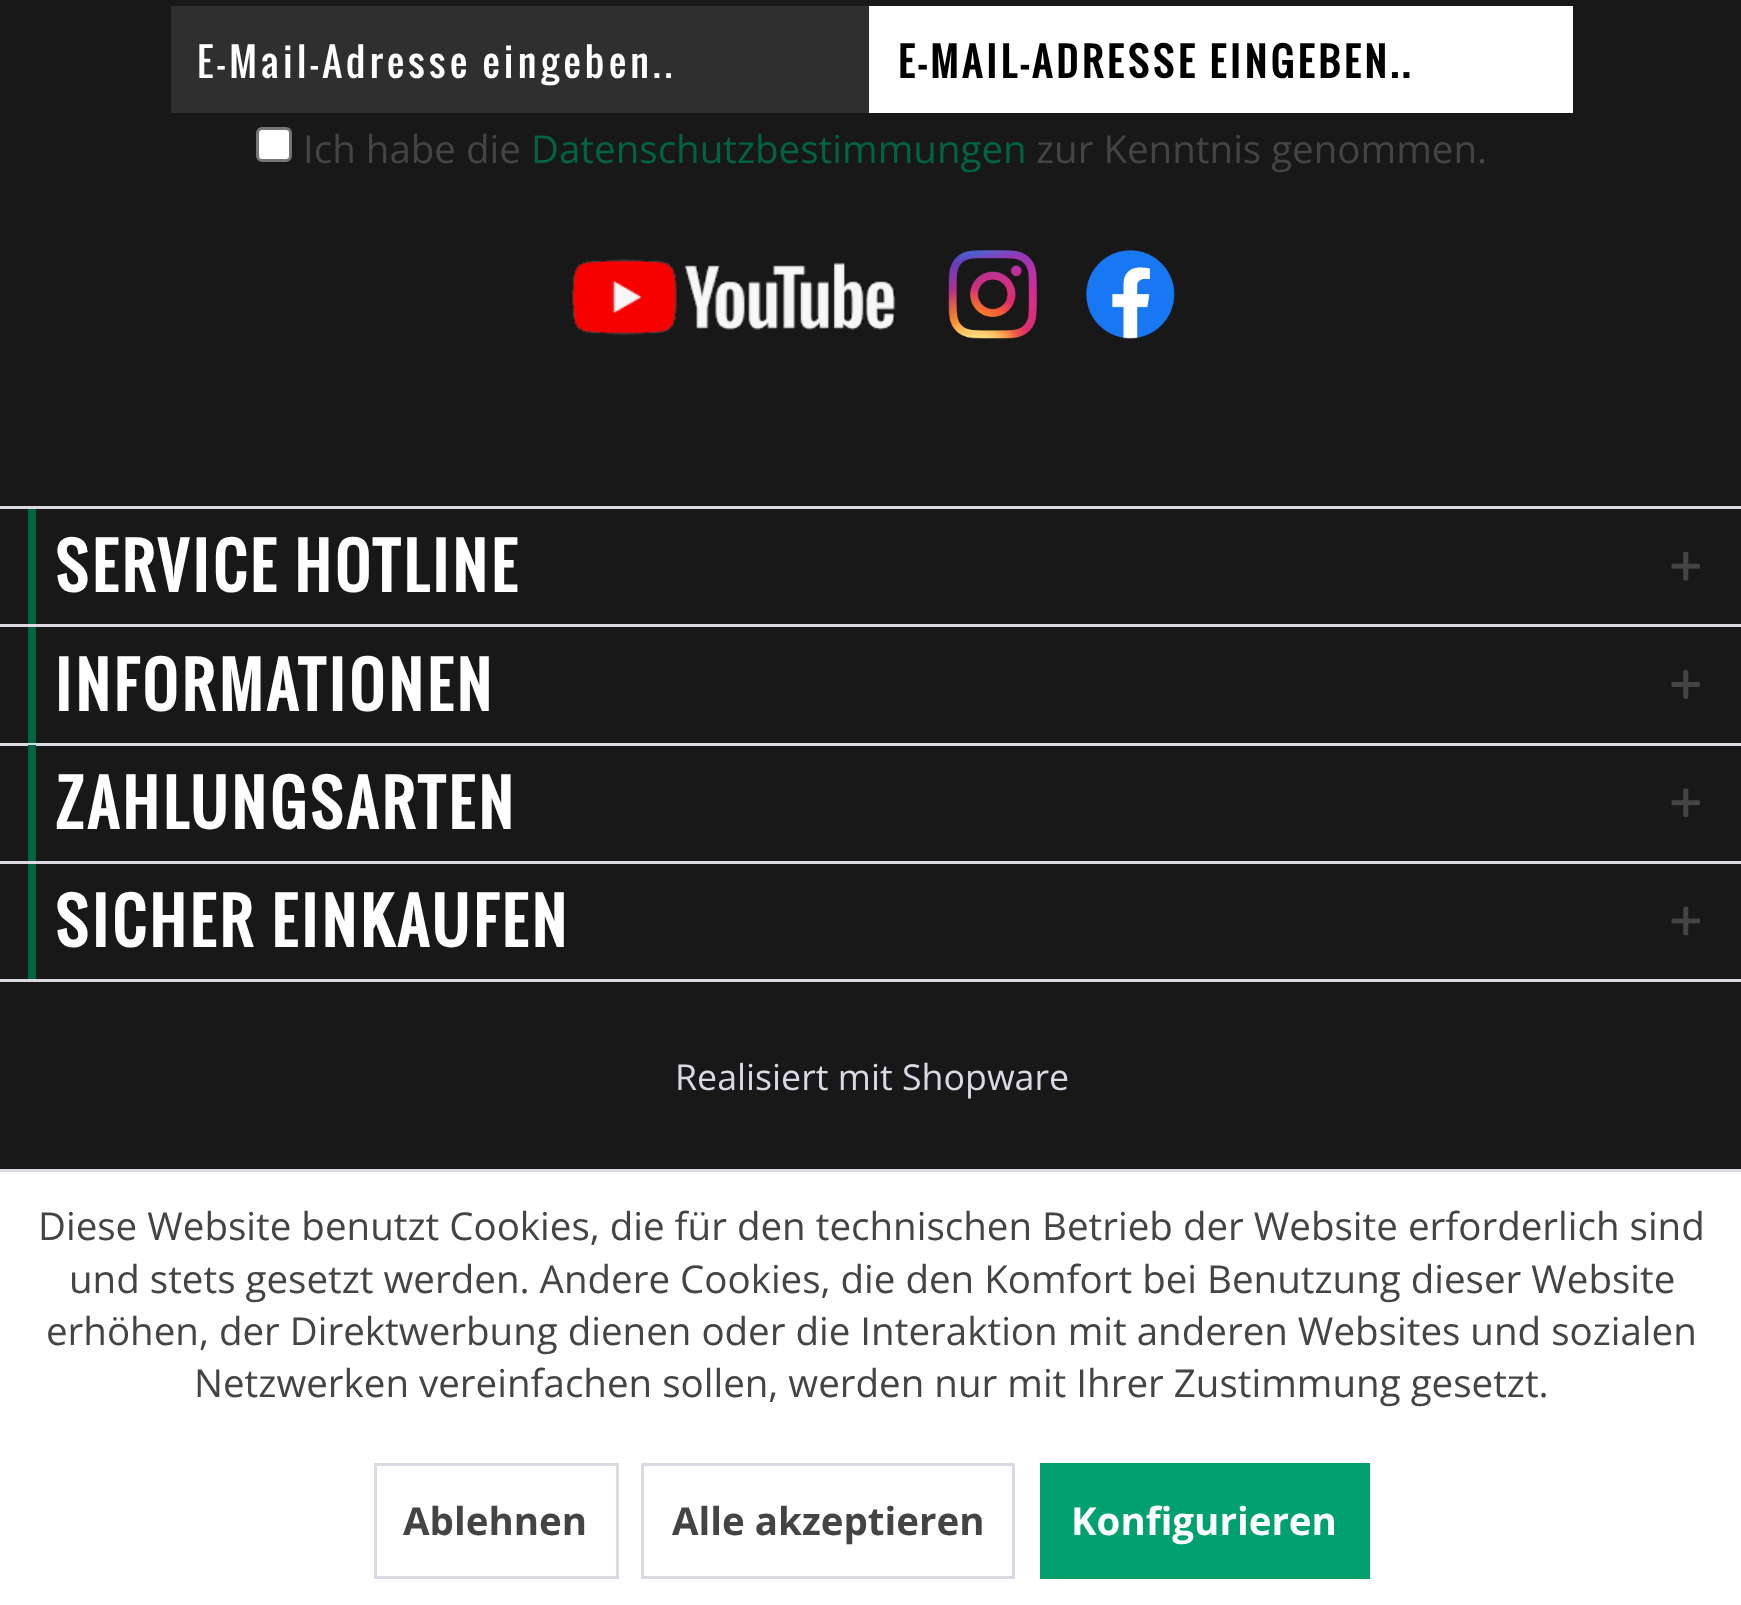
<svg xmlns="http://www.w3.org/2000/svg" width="1741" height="1605">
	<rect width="100%" height="100%" fill="#181818" />
	<rect x="171" y="6" width="698" height="107" fill="#2F2F2F" />
	<text x="197" y="78" font-family="Oswald" font-size="38.5" letter-spacing="4.4" fill="#FFFFFF">E-Mail-Adresse eingeben..</text>
	<rect x="869" y="6" width="704" height="107" fill="#FFFFFF" />
	<text x="898" y="78" font-family="Oswald" font-size="38.5" font-weight="700" letter-spacing="4.4" fill="#000000">E-MAIL-ADRESSE EINGEBEN..</text>
	<rect x="257.5" y="128.5" width="33" height="32" rx="4.5" fill="#FFFFFF" stroke="#767676" stroke-width="3" />
	<text x="303" y="163" font-family="Open Sans" font-size="38.5" fill="#444444">Ich habe die</text>
	<text x="531" y="163" font-family="Open Sans" font-size="38.5" fill="#006444">Datenschutzbestimmungen</text>
	<text x="1036" y="163" font-family="Open Sans" font-size="38.5" fill="#444444">zur Kenntnis genommen.</text>
	<image x="572" y="258" width="324" height="78" href="assets/img1.png" />
	<image x="948" y="250" width="89" height="89" href="assets/img2.png" />
	<image x="1086" y="250" width="89" height="89" href="assets/img3.png" />
	<rect x="0" y="506" width="1741" height="3" fill="#DADAE5" />
	<rect x="28" y="509" width="8" height="115" fill="#006444" />
	<text x="55" y="592" font-family="Oswald" font-size="60.5" font-weight="700" letter-spacing="4.4" fill="#FFFFFF">SERVICE HOTLINE</text>
	<image x="1671" y="551" width="29" height="30" href="assets/img4.png" />
	<rect x="0" y="624" width="1741" height="3" fill="#DADAE5" />
	<rect x="28" y="627" width="8" height="116" fill="#006444" />
	<text x="55" y="711" font-family="Oswald" font-size="60.5" font-weight="700" letter-spacing="4.4" fill="#FFFFFF">INFORMATIONEN</text>
	<image x="1671" y="670" width="29" height="29" href="assets/img5.png" />
	<rect x="0" y="743" width="1741" height="3" fill="#DADAE5" />
	<rect x="28" y="745" width="8" height="116" fill="#006444" />
	<text x="55" y="829" font-family="Oswald" font-size="60.5" font-weight="700" letter-spacing="4.4" fill="#FFFFFF">ZAHLUNGSARTEN</text>
	<image x="1671" y="788" width="29" height="29" href="assets/img6.png" />
	<rect x="0" y="861" width="1741" height="3" fill="#DADAE5" />
	<rect x="0" y="979" width="1741" height="3" fill="#DADAE5" />
	<rect x="28" y="864" width="8" height="115" fill="#006444" />
	<text x="55" y="947" font-family="Oswald" font-size="60.5" font-weight="700" letter-spacing="4.4" fill="#FFFFFF">SICHER EINKAUFEN</text>
	<image x="1671" y="906" width="29" height="30" href="assets/img7.png" />
	<text x="675" y="1090" font-family="Open Sans" font-size="35.75" fill="#DADAE5">Realisiert mit Shopware</text>
	<rect x="0" y="1172" width="1741" height="433" fill="#FFFFFF" />
	<rect x="0" y="1169" width="1741" height="3" fill="#DADAE5" />
	<g font-family="Open Sans" font-size="38.5" fill="#444444">
		<text x="38" y="1240">Diese Website benutzt Cookies, die für den technischen Betrieb der Website erforderlich sind</text>
		<text x="69" y="1293">und stets gesetzt werden. Andere Cookies, die den Komfort bei Benutzung dieser Website</text>
		<text x="46" y="1345">erhöhen, der Direktwerbung dienen oder die Interaktion mit anderen Websites und sozialen</text>
		<text x="194" y="1397">Netzwerken vereinfachen sollen, werden nur mit Ihrer Zustimmung gesetzt.</text>
	</g>
	<rect x="375.5" y="1464.5" width="242" height="113" fill="none" stroke="#DADAE5" stroke-width="3" />
	<text x="403" y="1535" font-family="Open Sans" font-size="38.5" font-weight="700" fill="#444444">Ablehnen</text>
	<rect x="642.5" y="1464.5" width="371" height="113" fill="none" stroke="#DADAE5" stroke-width="3" />
	<text x="672" y="1535" font-family="Open Sans" font-size="38.5" font-weight="700" fill="#444444">Alle akzeptieren</text>
	<rect x="1040" y="1463" width="330" height="116" fill="#00A16E" />
	<text x="1071" y="1535" font-family="Open Sans" font-size="38.5" font-weight="700" fill="#FFFFFF">Konfigurieren</text>
</svg>
